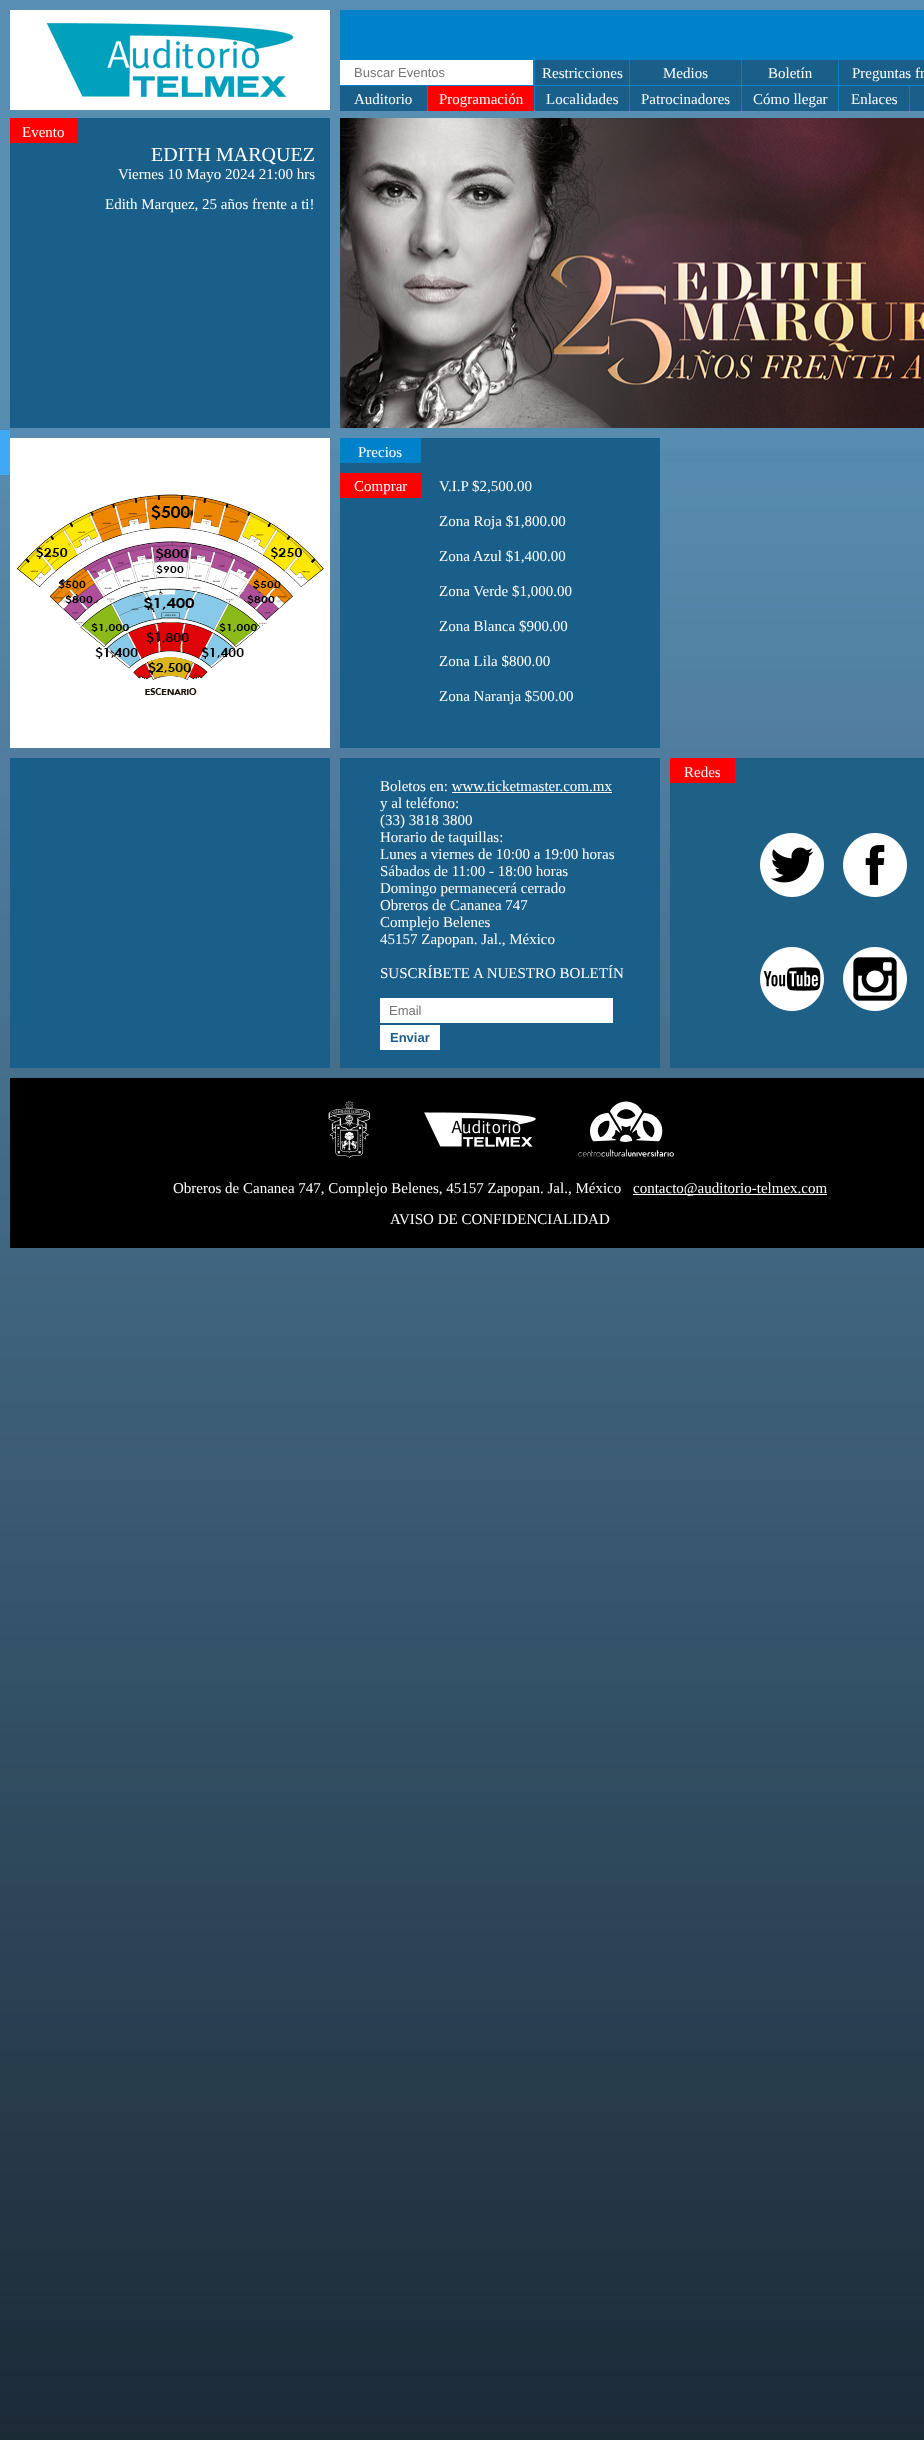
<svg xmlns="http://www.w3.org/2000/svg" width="924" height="2440">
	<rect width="100%" height="100%" fill="#FFFFFF" />
	<image x="0" y="0" width="924" height="2440" href="assets/img1.png" />
	<image x="10" y="10" width="320" height="100" href="assets/img2.png" />
	<rect x="340" y="10" width="584" height="100" fill="#0082CA" />
	<rect x="340" y="60" width="193" height="25" fill="#FFFFFF" />
	<text x="354" y="77" font-family="Liberation Sans" font-size="13" fill="#757575">Buscar Eventos</text>
	<rect x="535" y="60" width="94" height="25" fill="#1A5F89" />
	<text x="542" y="78" font-family="Liberation Serif" font-size="15" fill="#FFFFFF">Restricciones</text>
	<rect x="630" y="60" width="111" height="25" fill="#1A5F89" />
	<text x="663" y="78" font-family="Liberation Serif" font-size="15" fill="#FFFFFF">Medios</text>
	<rect x="742" y="60" width="96" height="25" fill="#1A5F89" />
	<text x="768" y="78" font-family="Liberation Serif" font-size="15" fill="#FFFFFF">Boletín</text>
	<rect x="839" y="60" width="85" height="25" fill="#1A5F89" />
	<text x="852" y="78" font-family="Liberation Serif" font-size="15" fill="#FFFFFF">Preguntas fr</text>
	<rect x="340" y="86" width="87" height="25" fill="#1A5F89" />
	<text x="354" y="104" font-family="Liberation Serif" font-size="15" fill="#FFFFFF">Auditorio</text>
	<rect x="428" y="86" width="106" height="25" fill="#FF0000" />
	<text x="439" y="104" font-family="Liberation Serif" font-size="15" fill="#FFFFFF">Programación</text>
	<rect x="535" y="86" width="94" height="25" fill="#1A5F89" />
	<text x="546" y="104" font-family="Liberation Serif" font-size="15" fill="#FFFFFF">Localidades</text>
	<rect x="630" y="86" width="111" height="25" fill="#1A5F89" />
	<text x="641" y="104" font-family="Liberation Serif" font-size="15" fill="#FFFFFF">Patrocinadores</text>
	<rect x="742" y="86" width="96" height="25" fill="#1A5F89" />
	<text x="753" y="104" font-family="Liberation Serif" font-size="15" fill="#FFFFFF">Cómo llegar</text>
	<rect x="839" y="86" width="70" height="25" fill="#1A5F89" />
	<text x="851" y="104" font-family="Liberation Serif" font-size="15" fill="#FFFFFF">Enlaces</text>
	<rect x="910" y="86" width="14" height="25" fill="#1A5F89" />
	<image x="10" y="416" width="914" height="192" href="assets/img3.png" />
	<rect x="10" y="118" width="320" height="310" fill="#1A5F89" />
	<rect x="10" y="118" width="67" height="25" fill="#FF0000" />
	<text x="22" y="137" font-family="Liberation Serif" font-size="15" fill="#FFFFFF">Evento</text>
	<text x="151" y="161" font-family="Liberation Serif" font-size="20" fill="#FFFFFF">EDITH MARQUEZ</text>
	<g font-family="Liberation Serif" font-size="15" fill="#FFFFFF">
		<text x="118" y="179">Viernes 10 Mayo 2024 21:00 hrs</text>
		<text x="105" y="209">Edith Marquez, 25 años frente a ti!</text>
	</g>
	<image x="10" y="438" width="320" height="310" href="assets/img4.png" />
	<image x="340" y="118" width="584" height="310" href="assets/img5.png" />
	<rect x="340" y="438" width="320" height="310" fill="#1A5F89" />
	<rect x="340" y="438" width="81" height="25" fill="#0082CA" />
	<text x="358" y="457" font-family="Liberation Serif" font-size="15" fill="#FFFFFF">Precios</text>
	<rect x="340" y="473" width="81" height="25" fill="#FF0000" />
	<g font-family="Liberation Serif" font-size="15" fill="#FFFFFF">
		<text x="354" y="491">Comprar</text>
		<text x="439" y="491">V.I.P $2,500.00</text>
		<text x="439" y="526">Zona Roja $1,800.00</text>
		<text x="439" y="561">Zona Azul $1,400.00</text>
		<text x="439" y="596">Zona Verde $1,000.00</text>
		<text x="439" y="631">Zona Blanca $900.00</text>
		<text x="439" y="666">Zona Lila $800.00</text>
		<text x="439" y="701">Zona Naranja $500.00</text>
	</g>
	<rect x="10" y="758" width="320" height="310" fill="#1A5F89" />
	<rect x="670" y="758" width="254" height="310" fill="#1F6087" />
	<rect x="670" y="758" width="65" height="25" fill="#FF0000" />
	<text x="684" y="777" font-family="Liberation Serif" font-size="15" fill="#FFFFFF">Redes</text>
	<image x="760" y="833" width="64" height="64" href="assets/img6.png" />
	<image x="843" y="833" width="64" height="64" href="assets/img7.png" />
	<image x="760" y="947" width="64" height="64" href="assets/img8.png" />
	<image x="843" y="947" width="64" height="64" href="assets/img9.png" />
	<rect x="340" y="758" width="320" height="310" fill="#1A5F89" />
	<text x="380" y="791" font-family="Liberation Serif" font-size="15" fill="#FFFFFF">Boletos en: www.ticketmaster.com.mx</text>
	<rect x="452" y="792" width="160" height="1" fill="#FFFFFF" />
	<g font-family="Liberation Serif" font-size="15" fill="#FFFFFF">
		<text x="380" y="808">y al teléfono:</text>
		<text x="380" y="825">(33) 3818 3800</text>
		<text x="380" y="842">Horario de taquillas:</text>
		<text x="380" y="859">Lunes a viernes de 10:00 a 19:00 horas</text>
		<text x="380" y="876">Sábados de 11:00 - 18:00 horas</text>
		<text x="380" y="893">Domingo permanecerá cerrado</text>
		<text x="380" y="910">Obreros de Cananea 747</text>
		<text x="380" y="927">Complejo Belenes</text>
		<text x="380" y="944">45157 Zapopan. Jal., México</text>
		<text x="380" y="978">SUSCRÍBETE A NUESTRO BOLETÍN</text>
	</g>
	<rect x="380" y="998" width="233" height="25" fill="#FFFFFF" />
	<text x="389" y="1015" font-family="Liberation Sans" font-size="13" fill="#757575">Email</text>
	<rect x="380" y="1025" width="60" height="25" fill="#FFFFFF" />
	<text x="390" y="1042" font-family="Liberation Sans" font-size="13" font-weight="700" fill="#1A5F89">Enviar</text>
	<rect x="10" y="1078" width="914" height="170" fill="#000000" />
	<image x="328" y="1101" width="42" height="57" href="assets/img10.png" />
	<image x="424" y="1112" width="112" height="35" href="assets/img11.png" />
	<image x="578" y="1101" width="96" height="56" href="assets/img12.png" />
	<text x="173" y="1193" font-family="Liberation Serif" font-size="15" fill="#FFFFFF">Obreros de Cananea 747, Complejo Belenes, 45157 Zapopan. Jal., México</text>
	<rect x="633" y="1194" width="194" height="1" fill="#FFFFFF" />
	<g font-family="Liberation Serif" font-size="15" fill="#FFFFFF">
		<text x="633" y="1193">contacto@auditorio-telmex.com</text>
		<text x="390" y="1224">AVISO DE CONFIDENCIALIDAD</text>
	</g>
</svg>
